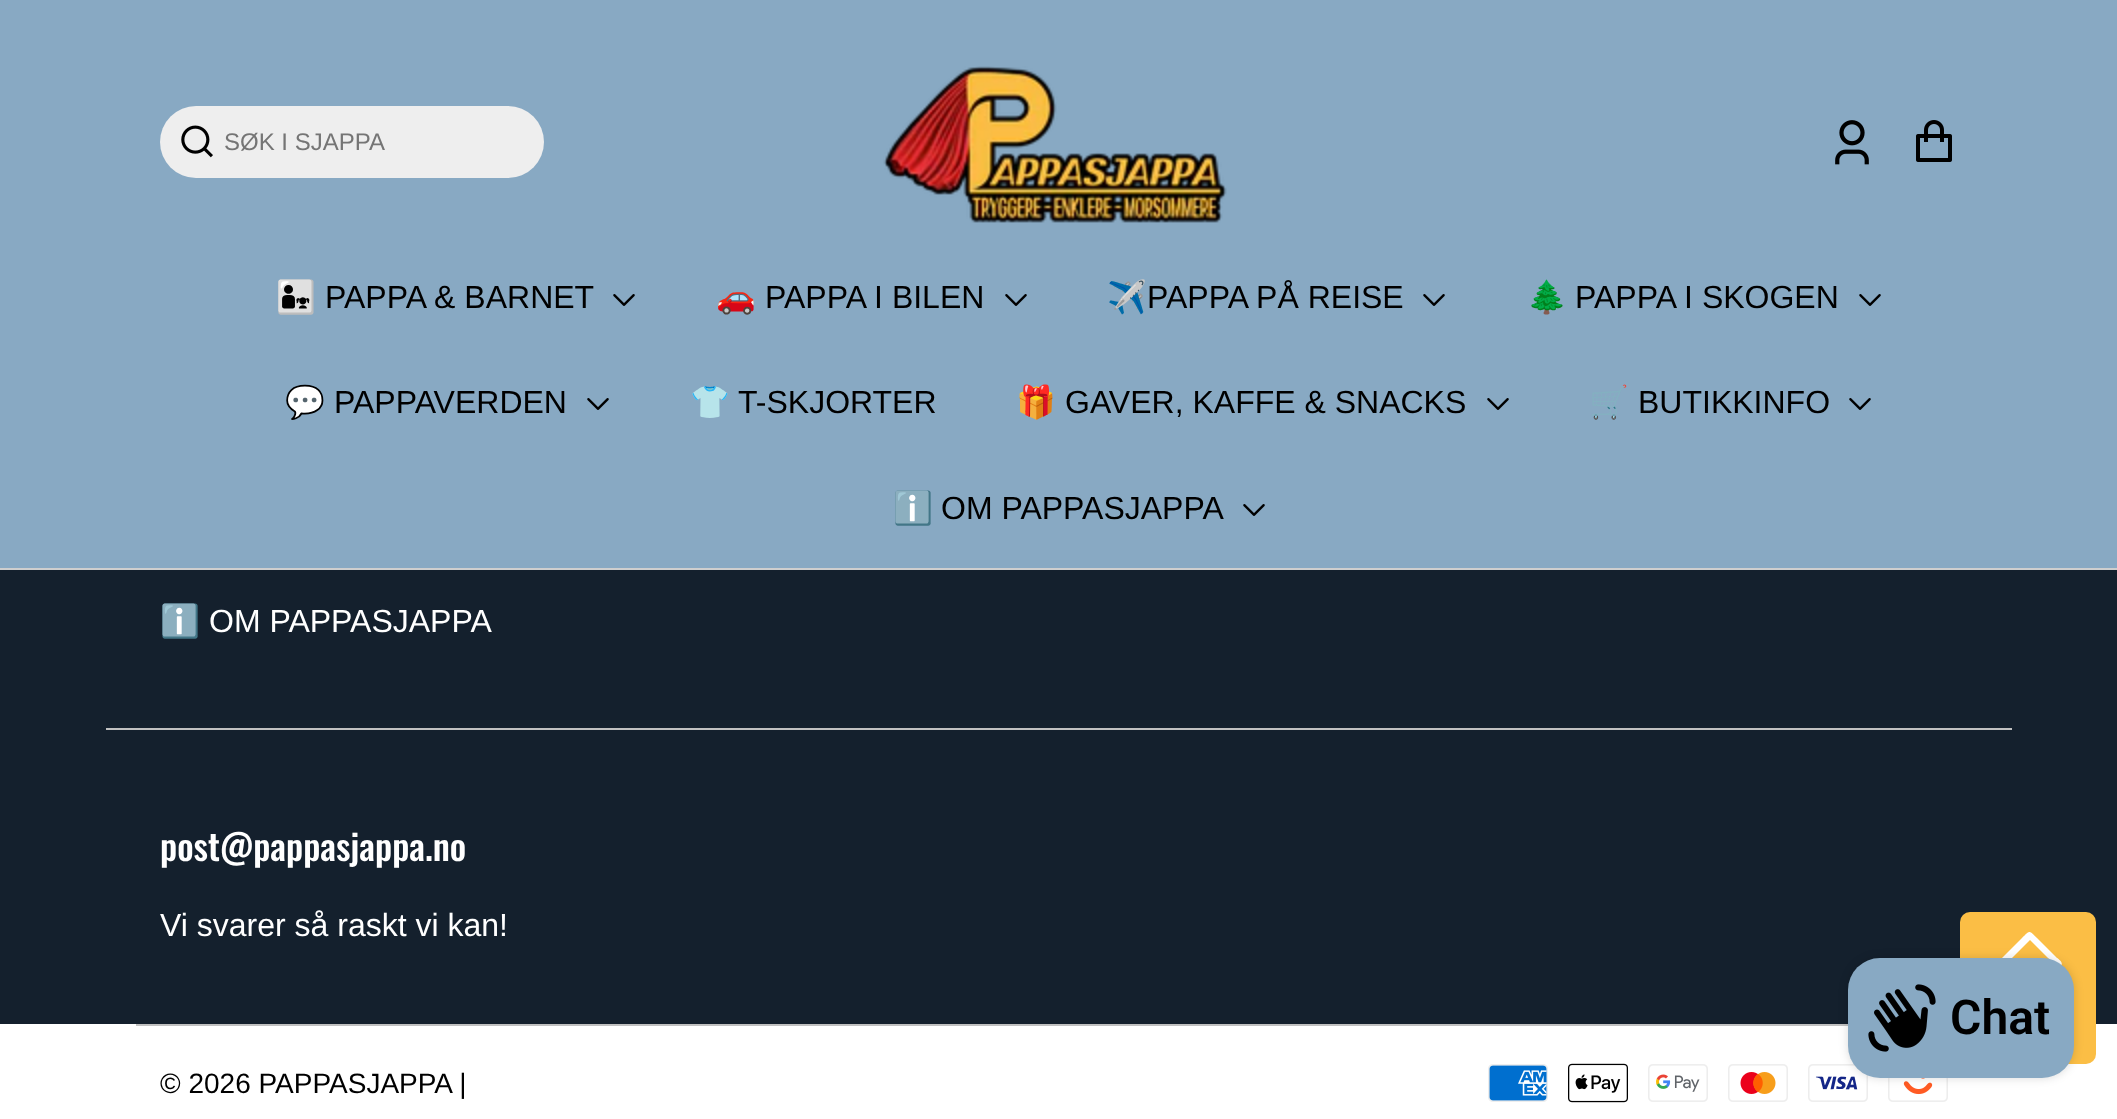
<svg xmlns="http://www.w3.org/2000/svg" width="2117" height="1119">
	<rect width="100%" height="100%" fill="#14202D" />
	<rect x="0" y="0" width="2117" height="568" fill="#88A9C3" />
	<rect x="0" y="568" width="2117" height="2" fill="#CECECE" />
	<rect x="160" y="106" width="384" height="72" rx="36" fill="#EEEEEE" />
	<image x="181" y="125" width="32" height="33" href="assets/img1.png" />
	<text x="224" y="150" font-family="Arimo" font-size="24" fill="#757575">SØK I SJAPPA</text>
	<image x="883" y="66" width="344" height="157" href="assets/img2.png" />
	<image x="1835" y="120" width="34" height="45" href="assets/img3.png" />
	<image x="1916" y="120" width="36" height="42" href="assets/img4.png" />
	<text x="276" y="308" font-family="Noto Color Emoji" font-size="32" fill="#000000">👨‍👧</text>
	<text x="325" y="308" font-family="Arimo" font-size="32" fill="#000000">PAPPA &amp; BARNET</text>
	<image x="613" y="294" width="22" height="12" href="assets/img5.png" />
	<text x="716" y="308" font-family="Noto Color Emoji" font-size="32" fill="#000000">🚗</text>
	<text x="765" y="308" font-family="Arimo" font-size="32" fill="#000000">PAPPA I BILEN</text>
	<image x="1005" y="294" width="22" height="12" href="assets/img5.png" />
	<text x="1107" y="308" font-family="Noto Color Emoji" font-size="32" fill="#000000">✈️</text>
	<text x="1147" y="308" font-family="Arimo" font-size="32" fill="#000000">PAPPA PÅ REISE</text>
	<image x="1423" y="294" width="22" height="12" href="assets/img5.png" />
	<text x="1527" y="308" font-family="Noto Color Emoji" font-size="32" fill="#000000">🌲</text>
	<text x="1575" y="308" font-family="Arimo" font-size="32" fill="#000000">PAPPA I SKOGEN</text>
	<image x="1859" y="294" width="22" height="12" href="assets/img5.png" />
	<text x="285" y="413" font-family="Noto Color Emoji" font-size="32" fill="#000000">💬</text>
	<text x="334" y="413" font-family="Arimo" font-size="32" fill="#000000">PAPPAVERDEN</text>
	<image x="587" y="398" width="22" height="12" href="assets/img5.png" />
	<text x="690" y="413" font-family="Noto Color Emoji" font-size="32" fill="#000000">👕</text>
	<text x="738" y="413" font-family="Arimo" font-size="32" fill="#000000">T-SKJORTER</text>
	<text x="1016" y="413" font-family="Noto Color Emoji" font-size="32" fill="#000000">🎁</text>
	<text x="1065" y="413" font-family="Arimo" font-size="32" fill="#000000">GAVER, KAFFE &amp; SNACKS</text>
	<image x="1487" y="398" width="22" height="12" href="assets/img5.png" />
	<text x="1589" y="413" font-family="Noto Color Emoji" font-size="32" fill="#000000">🛒</text>
	<text x="1638" y="413" font-family="Arimo" font-size="32" fill="#000000">BUTIKKINFO</text>
	<image x="1849" y="398" width="22" height="12" href="assets/img5.png" />
	<text x="893" y="519" font-family="Noto Color Emoji" font-size="32" fill="#000000">ℹ️</text>
	<text x="941" y="519" font-family="Arimo" font-size="32" fill="#000000">OM PAPPASJAPPA</text>
	<image x="1243" y="504" width="22" height="12" href="assets/img5.png" />
	<text x="160" y="632" font-family="Noto Color Emoji" font-size="32" fill="#FFFFFF">ℹ️</text>
	<text x="209" y="632" font-family="Arimo" font-size="32" fill="#FFFFFF">OM PAPPASJAPPA</text>
	<rect x="106" y="728" width="1906" height="2" fill="#C1C1C1" />
	<text x="160" y="861" font-family="Oswald" font-size="36" font-weight="500" fill="#FFFFFF">post@pappasjappa.no</text>
	<text x="160" y="936" font-family="Arimo" font-size="32" fill="#FFFFFF">Vi svarer så raskt vi kan!</text>
	<rect x="0" y="1024" width="2117" height="95" fill="#FFFFFF" />
	<rect x="136" y="1024" width="1712" height="2" fill="#C1C1C1" />
	<text x="160" y="1093" font-family="Arimo" font-size="28" fill="#000000">© 2026 PAPPASJAPPA |</text>
	<image x="1488" y="1064" width="60" height="38" href="assets/img6.png" />
	<image x="1568" y="1063" width="60" height="40" href="assets/img7.png" />
	<image x="1648" y="1064" width="60" height="38" href="assets/img8.png" />
	<image x="1728" y="1064" width="60" height="38" href="assets/img9.png" />
	<image x="1808" y="1064" width="60" height="38" href="assets/img10.png" />
	<image x="1888" y="1078" width="60" height="24" href="assets/img11.png" />
	<rect x="1960" y="912" width="136" height="152" rx="10" fill="#FBBE45" />
	<path d="M1998 967C2002 970 2006 964 2008 962L2030 940L2052 962C2053 964 2058 971 2061 966C2064 962 2058 959 2056 957L2037 938C2029 930 2030 930 2022 938L2003 957C2001 959 1995 963 1998 967Z" fill="#FFFFFF" fill-rule="evenodd" />
	<rect x="1848" y="958" width="226" height="120" rx="32" fill="#000000" fill-opacity="0.15" filter="blur(5px)" />
	<rect x="1848" y="958" width="226" height="120" rx="32" fill="#88A9C3" />
	<image x="1868" y="984" width="68" height="68" href="assets/img12.png" />
	<text x="1950" y="1034" font-family="Roboto" font-size="48" font-weight="600" fill="#000000">Chat</text>
</svg>
